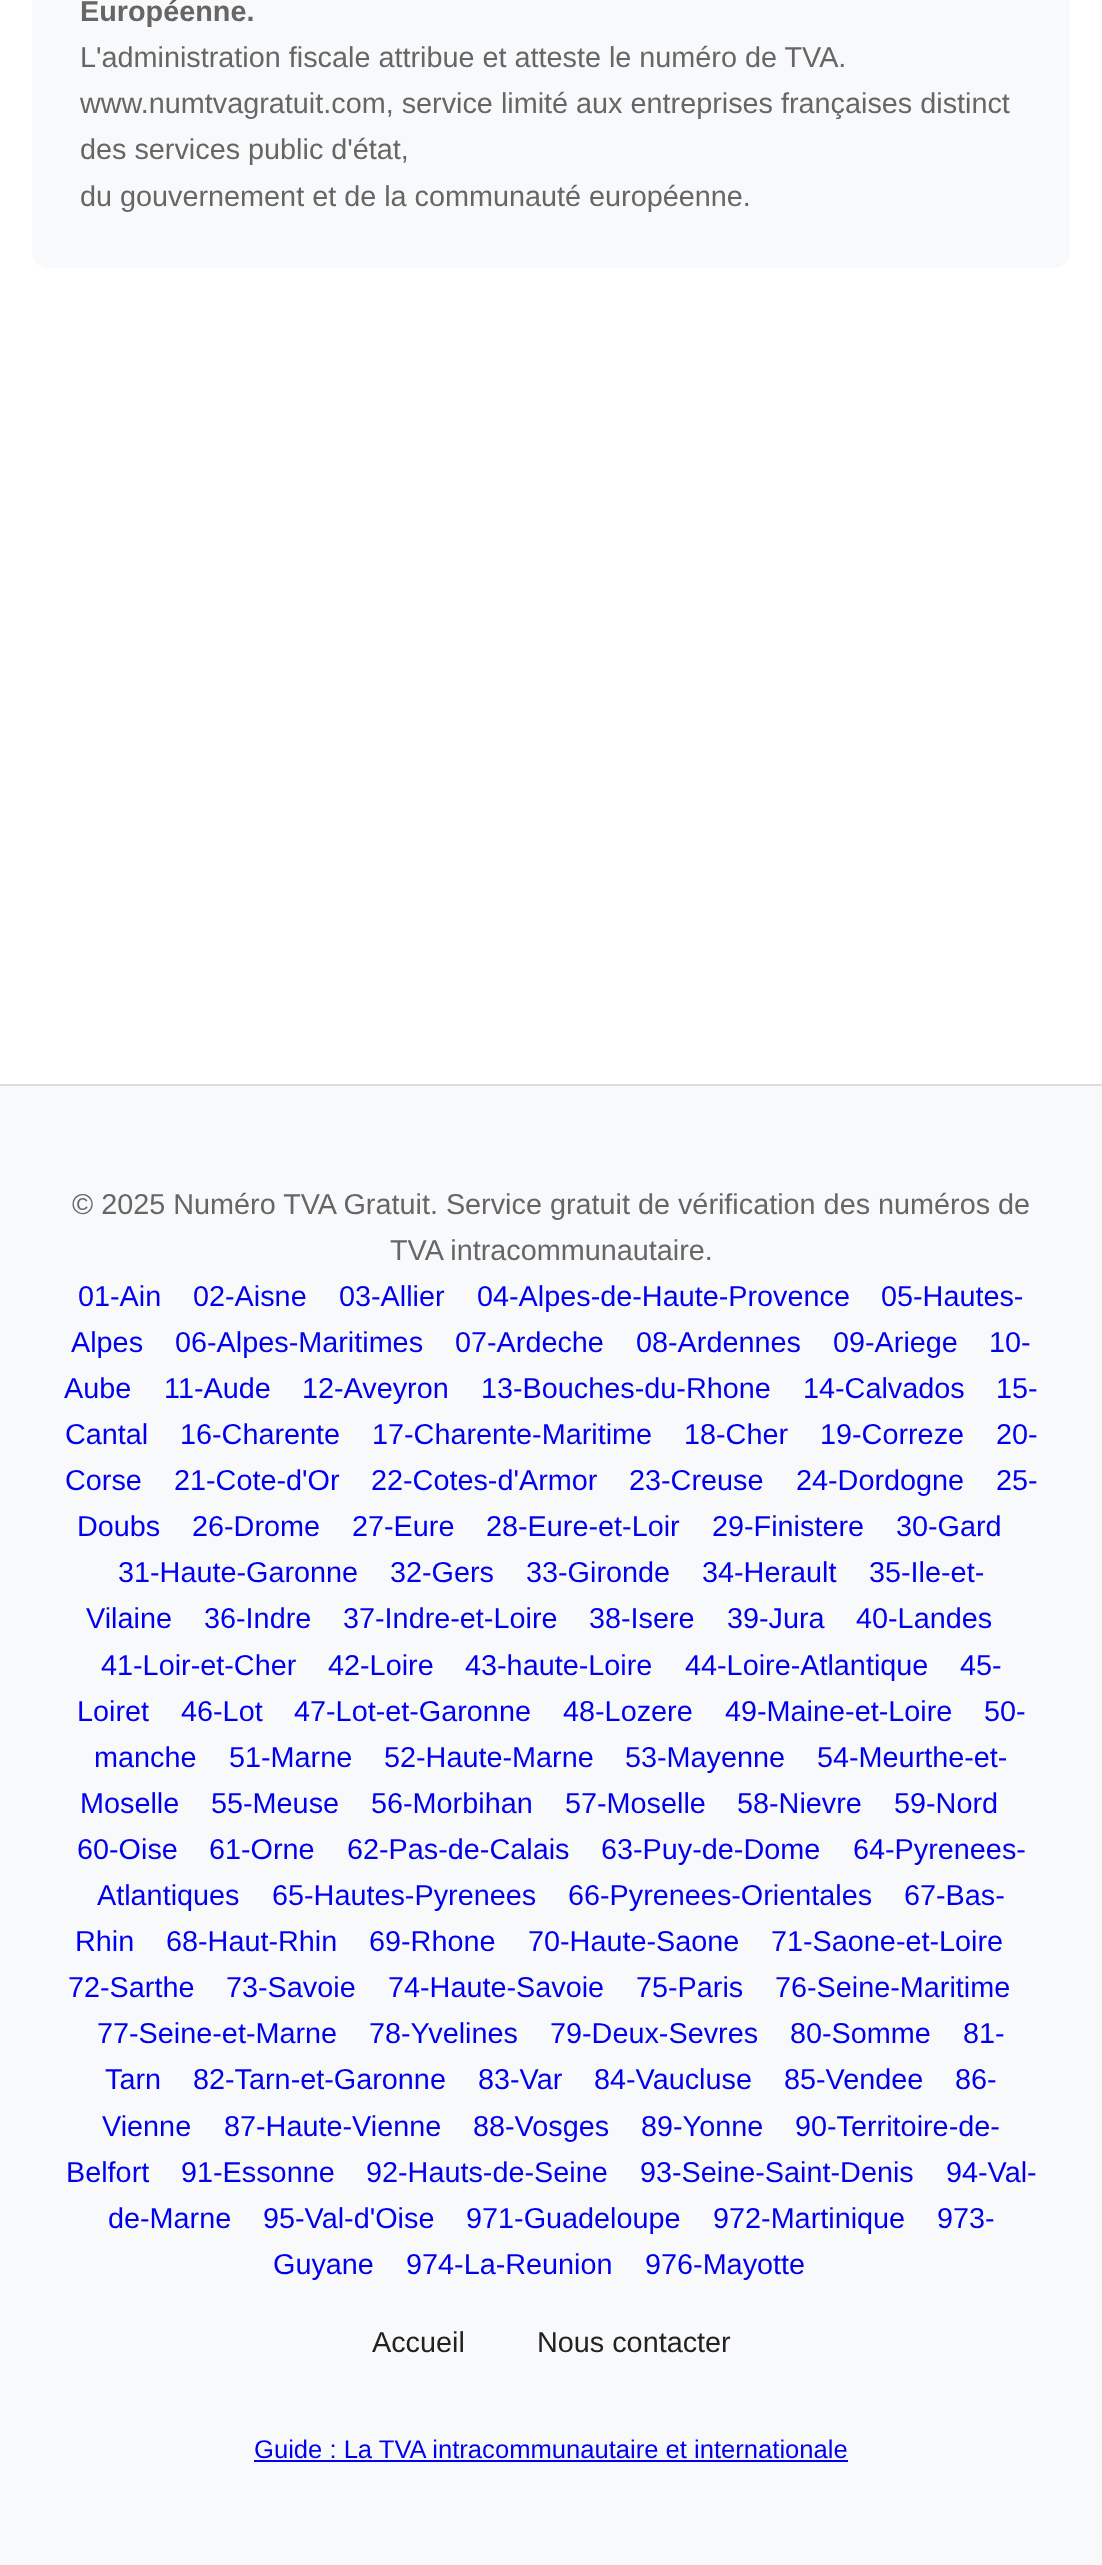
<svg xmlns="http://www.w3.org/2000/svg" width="1102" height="2565">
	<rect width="100%" height="100%" fill="#FFFFFF" />
	<rect x="32" y="-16" width="1038" height="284" rx="16" fill="#F8F9FA" />
	<text x="80" y="21" font-family="Liberation Sans" font-size="28.8" font-weight="700" fill="#666666">Européenne.</text>
	<g font-family="Liberation Sans" font-size="28.8" fill="#666666">
		<text x="80" y="67">L'administration fiscale attribue et atteste le numéro de TVA.</text>
		<text x="80" y="113">www.numtvagratuit.com, service limité aux entreprises françaises distinct</text>
		<text x="80" y="159">des services public d'état,</text>
		<text x="80" y="206">du gouvernement et de la communauté européenne.</text>
	</g>
	<rect x="0" y="1086" width="1102" height="1479" fill="#F8F9FA" />
	<rect x="0" y="1084" width="1102" height="2" fill="#DDDDDD" />
	<g font-family="Liberation Sans" font-size="28.8" fill="#666666">
		<text x="72" y="1214">© 2025 Numéro TVA Gratuit. Service gratuit de vérification des numéros de</text>
		<text x="390" y="1260">TVA intracommunautaire.</text>
	</g>
	<g font-family="Liberation Sans" font-size="28.8" fill="#0000EE">
		<text x="78" y="1306">01-Ain</text>
		<text x="193" y="1306">02-Aisne</text>
		<text x="339" y="1306">03-Allier</text>
		<text x="477" y="1306">04-Alpes-de-Haute-Provence</text>
		<text x="881" y="1306">05-Hautes-</text>
		<text x="71" y="1352">Alpes</text>
		<text x="175" y="1352">06-Alpes-Maritimes</text>
		<text x="455" y="1352">07-Ardeche</text>
		<text x="636" y="1352">08-Ardennes</text>
		<text x="833" y="1352">09-Ariege</text>
		<text x="989" y="1352">10-</text>
		<text x="64" y="1398">Aube</text>
		<text x="164" y="1398">11-Aude</text>
		<text x="302" y="1398">12-Aveyron</text>
		<text x="481" y="1398">13-Bouches-du-Rhone</text>
		<text x="803" y="1398">14-Calvados</text>
		<text x="996" y="1398">15-</text>
		<text x="65" y="1444">Cantal</text>
		<text x="180" y="1444">16-Charente</text>
		<text x="372" y="1444">17-Charente-Maritime</text>
		<text x="684" y="1444">18-Cher</text>
		<text x="820" y="1444">19-Correze</text>
		<text x="996" y="1444">20-</text>
		<text x="65" y="1490">Corse</text>
		<text x="174" y="1490">21-Cote-d'Or</text>
		<text x="371" y="1490">22-Cotes-d'Armor</text>
		<text x="629" y="1490">23-Creuse</text>
		<text x="796" y="1490">24-Dordogne</text>
		<text x="996" y="1490">25-</text>
		<text x="77" y="1536">Doubs</text>
		<text x="192" y="1536">26-Drome</text>
		<text x="352" y="1536">27-Eure</text>
		<text x="486" y="1536">28-Eure-et-Loir</text>
		<text x="712" y="1536">29-Finistere</text>
		<text x="896" y="1536">30-Gard</text>
		<text x="118" y="1582">31-Haute-Garonne</text>
		<text x="390" y="1582">32-Gers</text>
		<text x="526" y="1582">33-Gironde</text>
		<text x="702" y="1582">34-Herault</text>
		<text x="869" y="1582">35-Ile-et-</text>
		<text x="86" y="1628">Vilaine</text>
		<text x="204" y="1628">36-Indre</text>
		<text x="343" y="1628">37-Indre-et-Loire</text>
		<text x="589" y="1628">38-Isere</text>
		<text x="727" y="1628">39-Jura</text>
		<text x="856" y="1628">40-Landes</text>
		<text x="101" y="1675">41-Loir-et-Cher</text>
		<text x="328" y="1675">42-Loire</text>
		<text x="465" y="1675">43-haute-Loire</text>
		<text x="685" y="1675">44-Loire-Atlantique</text>
		<text x="960" y="1675">45-</text>
		<text x="77" y="1721">Loiret</text>
		<text x="181" y="1721">46-Lot</text>
		<text x="294" y="1721">47-Lot-et-Garonne</text>
		<text x="563" y="1721">48-Lozere</text>
		<text x="725" y="1721">49-Maine-et-Loire</text>
		<text x="984" y="1721">50-</text>
		<text x="94" y="1767">manche</text>
		<text x="229" y="1767">51-Marne</text>
		<text x="384" y="1767">52-Haute-Marne</text>
		<text x="625" y="1767">53-Mayenne</text>
		<text x="817" y="1767">54-Meurthe-et-</text>
		<text x="80" y="1813">Moselle</text>
		<text x="211" y="1813">55-Meuse</text>
		<text x="371" y="1813">56-Morbihan</text>
		<text x="565" y="1813">57-Moselle</text>
		<text x="737" y="1813">58-Nievre</text>
		<text x="894" y="1813">59-Nord</text>
		<text x="77" y="1859">60-Oise</text>
		<text x="209" y="1859">61-Orne</text>
		<text x="347" y="1859">62-Pas-de-Calais</text>
		<text x="601" y="1859">63-Puy-de-Dome</text>
		<text x="853" y="1859">64-Pyrenees-</text>
		<text x="97" y="1905">Atlantiques</text>
		<text x="272" y="1905">65-Hautes-Pyrenees</text>
		<text x="568" y="1905">66-Pyrenees-Orientales</text>
		<text x="904" y="1905">67-Bas-</text>
		<text x="75" y="1951">Rhin</text>
		<text x="166" y="1951">68-Haut-Rhin</text>
		<text x="369" y="1951">69-Rhone</text>
		<text x="528" y="1951">70-Haute-Saone</text>
		<text x="771" y="1951">71-Saone-et-Loire</text>
		<text x="68" y="1997">72-Sarthe</text>
		<text x="226" y="1997">73-Savoie</text>
		<text x="388" y="1997">74-Haute-Savoie</text>
		<text x="636" y="1997">75-Paris</text>
		<text x="775" y="1997">76-Seine-Maritime</text>
		<text x="97" y="2043">77-Seine-et-Marne</text>
		<text x="369" y="2043">78-Yvelines</text>
		<text x="550" y="2043">79-Deux-Sevres</text>
		<text x="790" y="2043">80-Somme</text>
		<text x="963" y="2043">81-</text>
		<text x="105" y="2089">Tarn</text>
		<text x="193" y="2089">82-Tarn-et-Garonne</text>
		<text x="478" y="2089">83-Var</text>
		<text x="594" y="2089">84-Vaucluse</text>
		<text x="784" y="2089">85-Vendee</text>
		<text x="955" y="2089">86-</text>
		<text x="102" y="2136">Vienne</text>
		<text x="224" y="2136">87-Haute-Vienne</text>
		<text x="473" y="2136">88-Vosges</text>
		<text x="641" y="2136">89-Yonne</text>
		<text x="795" y="2136">90-Territoire-de-</text>
		<text x="66" y="2182">Belfort</text>
		<text x="181" y="2182">91-Essonne</text>
		<text x="366" y="2182">92-Hauts-de-Seine</text>
		<text x="640" y="2182">93-Seine-Saint-Denis</text>
		<text x="946" y="2182">94-Val-</text>
		<text x="108" y="2228">de-Marne</text>
		<text x="263" y="2228">95-Val-d'Oise</text>
		<text x="466" y="2228">971-Guadeloupe</text>
		<text x="713" y="2228">972-Martinique</text>
		<text x="937" y="2228">973-</text>
		<text x="273" y="2274">Guyane</text>
		<text x="406" y="2274">974-La-Reunion</text>
		<text x="645" y="2274">976-Mayotte</text>
	</g>
	<g font-family="Liberation Sans" font-size="28.8" fill="#222222">
		<text x="372" y="2352">Accueil</text>
		<text x="537" y="2352">Nous contacter</text>
	</g>
	<text x="254" y="2458" font-family="Liberation Sans" font-size="25.6" fill="#0000EE">Guide : La TVA intracommunautaire et internationale</text>
	<rect x="254" y="2460" width="594" height="2" fill="#0000EE" />
</svg>
